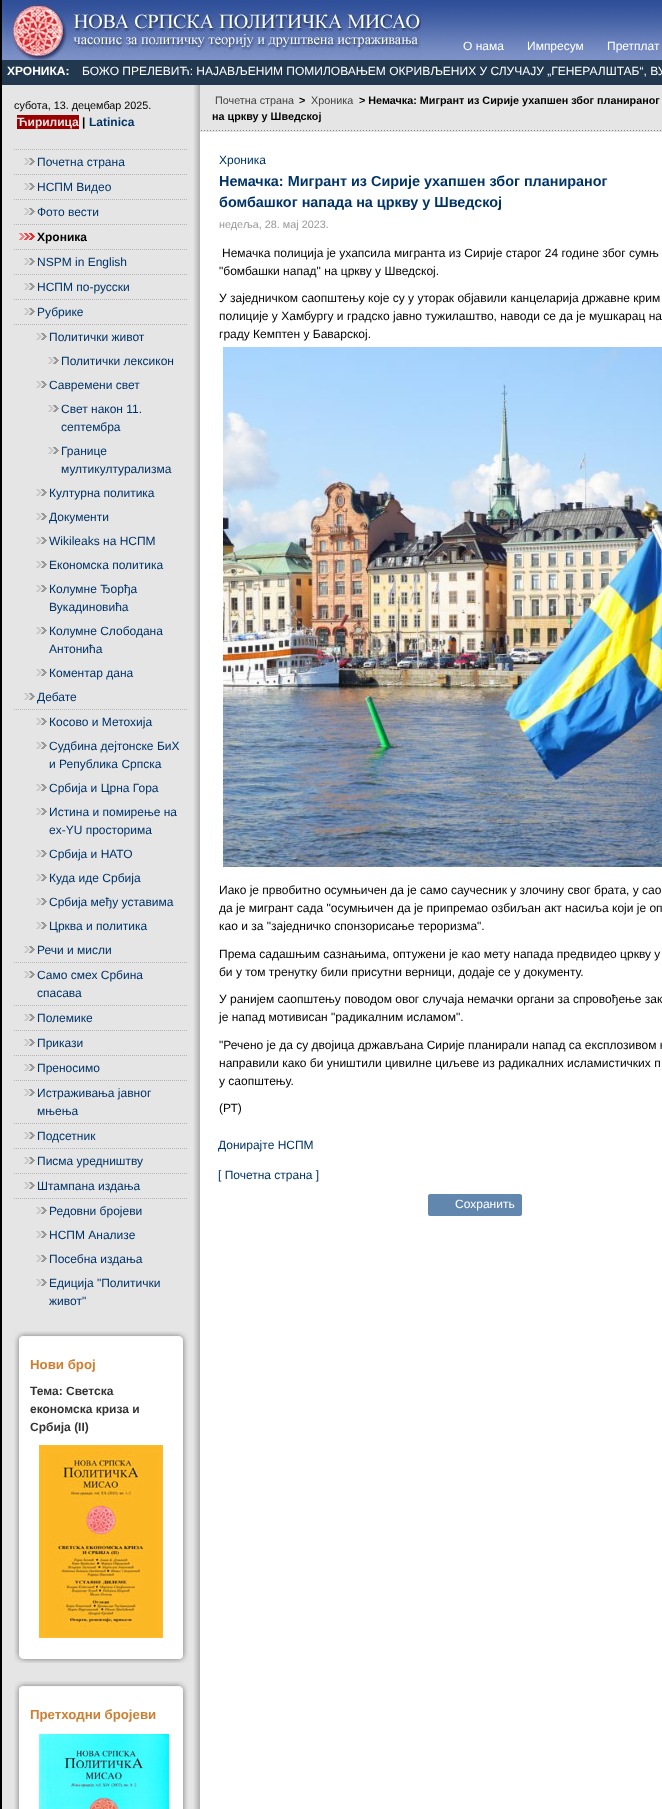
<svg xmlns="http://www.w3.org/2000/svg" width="662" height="1809">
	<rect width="100%" height="100%" fill="#FFFFFF" />
	<rect x="0" y="0" width="2" height="1809" fill="#000000" />
	<image x="2" y="0" width="660" height="60" href="assets/img1.png" />
	<image x="6" y="1" width="415" height="59" href="assets/img2.png" />
	<text x="463" y="50" font-family="Liberation Sans" font-size="12" fill="#FFFFFF">О нама</text>
	<rect x="444" y="40" width="1" height="1" fill="#808080" />
	<text x="527" y="50" font-family="Liberation Sans" font-size="12" fill="#FFFFFF">Импресум</text>
	<rect x="508" y="40" width="1" height="1" fill="#808080" />
	<text x="607" y="50" font-family="Liberation Sans" font-size="12" fill="#FFFFFF">Претплат</text>
	<rect x="588" y="40" width="1" height="1" fill="#808080" />
	<rect x="2" y="60" width="660" height="25" fill="#22384F" />
	<text x="7" y="75" font-family="Liberation Sans" font-size="12" font-weight="700" fill="#FFFFFF">ХРОНИКА:</text>
	<text x="82" y="75" font-family="Liberation Sans" font-size="12" fill="#FFFFFF">БОЖО ПРЕЛЕВИЋ: НАЈАВЉЕНИМ ПОМИЛОВАЊЕМ ОКРИВЉЕНИХ У СЛУЧАЈУ „ГЕНЕРАЛШТАБ“, ВУ</text>
	<image x="2" y="85" width="198" height="1724" href="assets/img3.png" />
	<text x="14" y="109" font-family="Liberation Sans" font-size="10.8" fill="#000000">субота, 13. децембар 2025.</text>
	<rect x="17" y="115" width="62" height="14" fill="#990000" />
	<text x="17" y="126" font-family="Liberation Sans" font-size="12" font-weight="700" fill="#E5E5E5">Ћирилица</text>
	<text x="82" y="126" font-family="Liberation Sans" font-size="12" font-weight="700" fill="#000000">|</text>
	<text x="89" y="126" font-family="Liberation Sans" font-size="12" font-weight="700" fill="#003366">Latinica</text>
	<path d="M14 149.5H188" fill="none" stroke="#B3B3B3" stroke-dasharray="1 1" />
	<image x="24" y="158" width="11" height="7" href="assets/img4.png" />
	<path d="M14 174.5H188" fill="none" stroke="#B3B3B3" stroke-dasharray="1 1" />
	<text x="37" y="166" font-family="Liberation Sans" font-size="12" fill="#003366">Почетна страна</text>
	<image x="24" y="183" width="11" height="7" href="assets/img4.png" />
	<path d="M14 199.5H188" fill="none" stroke="#B3B3B3" stroke-dasharray="1 1" />
	<text x="37" y="191" font-family="Liberation Sans" font-size="12" fill="#003366">НСПМ Видео</text>
	<image x="24" y="208" width="11" height="7" href="assets/img4.png" />
	<path d="M14 224.5H188" fill="none" stroke="#B3B3B3" stroke-dasharray="1 1" />
	<text x="37" y="216" font-family="Liberation Sans" font-size="12" fill="#003366">Фото вести</text>
	<image x="19" y="233" width="16" height="7" href="assets/img5.png" />
	<path d="M14 249.5H188" fill="none" stroke="#B3B3B3" stroke-dasharray="1 1" />
	<text x="37" y="241" font-family="Liberation Sans" font-size="12" font-weight="700" fill="#000000">Хроника</text>
	<image x="24" y="258" width="11" height="7" href="assets/img4.png" />
	<path d="M14 274.5H188" fill="none" stroke="#B3B3B3" stroke-dasharray="1 1" />
	<text x="37" y="266" font-family="Liberation Sans" font-size="12" fill="#003366">NSPM in English</text>
	<image x="24" y="283" width="11" height="7" href="assets/img4.png" />
	<path d="M14 299.5H188" fill="none" stroke="#B3B3B3" stroke-dasharray="1 1" />
	<text x="37" y="291" font-family="Liberation Sans" font-size="12" fill="#003366">НСПМ по-русски</text>
	<image x="24" y="308" width="11" height="7" href="assets/img4.png" />
	<path d="M14 324.5H188" fill="none" stroke="#B3B3B3" stroke-dasharray="1 1" />
	<text x="37" y="316" font-family="Liberation Sans" font-size="12" fill="#003366">Рубрике</text>
	<image x="36" y="333" width="11" height="7" href="assets/img4.png" />
	<text x="49" y="341" font-family="Liberation Sans" font-size="12" fill="#003366">Политички живот</text>
	<image x="48" y="357" width="11" height="7" href="assets/img4.png" />
	<text x="61" y="365" font-family="Liberation Sans" font-size="12" fill="#003366">Политички лексикон</text>
	<image x="36" y="381" width="11" height="7" href="assets/img4.png" />
	<text x="49" y="389" font-family="Liberation Sans" font-size="12" fill="#003366">Савремени свет</text>
	<image x="48" y="405" width="11" height="7" href="assets/img4.png" />
	<g font-family="Liberation Sans" font-size="12" fill="#003366">
		<text x="61" y="413">Свет након 11.</text>
		<text x="61" y="431">септембра</text>
	</g>
	<image x="48" y="447" width="11" height="7" href="assets/img4.png" />
	<g font-family="Liberation Sans" font-size="12" fill="#003366">
		<text x="61" y="455">Границе</text>
		<text x="61" y="473">мултикултурализма</text>
	</g>
	<image x="36" y="489" width="11" height="7" href="assets/img4.png" />
	<text x="49" y="497" font-family="Liberation Sans" font-size="12" fill="#003366">Културна политика</text>
	<image x="36" y="513" width="11" height="7" href="assets/img4.png" />
	<text x="49" y="521" font-family="Liberation Sans" font-size="12" fill="#003366">Документи</text>
	<image x="36" y="537" width="11" height="7" href="assets/img4.png" />
	<text x="49" y="545" font-family="Liberation Sans" font-size="12" fill="#003366">Wikileaks на НСПМ</text>
	<image x="36" y="561" width="11" height="7" href="assets/img4.png" />
	<text x="49" y="569" font-family="Liberation Sans" font-size="12" fill="#003366">Економска политика</text>
	<image x="36" y="585" width="11" height="7" href="assets/img4.png" />
	<g font-family="Liberation Sans" font-size="12" fill="#003366">
		<text x="49" y="593">Колумне Ђорђа</text>
		<text x="49" y="611">Вукадиновића</text>
	</g>
	<image x="36" y="627" width="11" height="7" href="assets/img4.png" />
	<g font-family="Liberation Sans" font-size="12" fill="#003366">
		<text x="49" y="635">Колумне Слободана</text>
		<text x="49" y="653">Антонића</text>
	</g>
	<image x="36" y="669" width="11" height="7" href="assets/img4.png" />
	<text x="49" y="677" font-family="Liberation Sans" font-size="12" fill="#003366">Коментар дана</text>
	<image x="24" y="693" width="11" height="7" href="assets/img4.png" />
	<path d="M14 709.5H188" fill="none" stroke="#B3B3B3" stroke-dasharray="1 1" />
	<text x="37" y="701" font-family="Liberation Sans" font-size="12" fill="#003366">Дебате</text>
	<image x="36" y="718" width="11" height="7" href="assets/img4.png" />
	<text x="49" y="726" font-family="Liberation Sans" font-size="12" fill="#003366">Косово и Метохија</text>
	<image x="36" y="742" width="11" height="7" href="assets/img4.png" />
	<g font-family="Liberation Sans" font-size="12" fill="#003366">
		<text x="49" y="750">Судбина дејтонске БиХ</text>
		<text x="49" y="768">и Република Српска</text>
	</g>
	<image x="36" y="784" width="11" height="7" href="assets/img4.png" />
	<text x="49" y="792" font-family="Liberation Sans" font-size="12" fill="#003366">Србија и Црна Гора</text>
	<image x="36" y="808" width="11" height="7" href="assets/img4.png" />
	<g font-family="Liberation Sans" font-size="12" fill="#003366">
		<text x="49" y="816">Истина и помирење на</text>
		<text x="49" y="834">ex-YU просторима</text>
	</g>
	<image x="36" y="850" width="11" height="7" href="assets/img4.png" />
	<text x="49" y="858" font-family="Liberation Sans" font-size="12" fill="#003366">Србија и НАТО</text>
	<image x="36" y="874" width="11" height="7" href="assets/img4.png" />
	<text x="49" y="882" font-family="Liberation Sans" font-size="12" fill="#003366">Куда иде Србија</text>
	<image x="36" y="898" width="11" height="7" href="assets/img4.png" />
	<text x="49" y="906" font-family="Liberation Sans" font-size="12" fill="#003366">Србија међу уставима</text>
	<image x="36" y="922" width="11" height="7" href="assets/img4.png" />
	<text x="49" y="930" font-family="Liberation Sans" font-size="12" fill="#003366">Црква и политика</text>
	<image x="24" y="946" width="11" height="7" href="assets/img4.png" />
	<path d="M14 962.5H188" fill="none" stroke="#B3B3B3" stroke-dasharray="1 1" />
	<text x="37" y="954" font-family="Liberation Sans" font-size="12" fill="#003366">Речи и мисли</text>
	<image x="24" y="971" width="11" height="7" href="assets/img4.png" />
	<path d="M14 1005.5H188" fill="none" stroke="#B3B3B3" stroke-dasharray="1 1" />
	<g font-family="Liberation Sans" font-size="12" fill="#003366">
		<text x="37" y="979">Само смех Србина</text>
		<text x="37" y="997">спасава</text>
	</g>
	<image x="24" y="1014" width="11" height="7" href="assets/img4.png" />
	<path d="M14 1030.5H188" fill="none" stroke="#B3B3B3" stroke-dasharray="1 1" />
	<text x="37" y="1022" font-family="Liberation Sans" font-size="12" fill="#003366">Полемике</text>
	<image x="24" y="1039" width="11" height="7" href="assets/img4.png" />
	<path d="M14 1055.5H188" fill="none" stroke="#B3B3B3" stroke-dasharray="1 1" />
	<text x="37" y="1047" font-family="Liberation Sans" font-size="12" fill="#003366">Прикази</text>
	<image x="24" y="1064" width="11" height="7" href="assets/img4.png" />
	<path d="M14 1080.5H188" fill="none" stroke="#B3B3B3" stroke-dasharray="1 1" />
	<text x="37" y="1072" font-family="Liberation Sans" font-size="12" fill="#003366">Преносимо</text>
	<image x="24" y="1089" width="11" height="7" href="assets/img4.png" />
	<path d="M14 1123.5H188" fill="none" stroke="#B3B3B3" stroke-dasharray="1 1" />
	<g font-family="Liberation Sans" font-size="12" fill="#003366">
		<text x="37" y="1097">Истраживања јавног</text>
		<text x="37" y="1115">мњења</text>
	</g>
	<image x="24" y="1132" width="11" height="7" href="assets/img4.png" />
	<path d="M14 1148.5H188" fill="none" stroke="#B3B3B3" stroke-dasharray="1 1" />
	<text x="37" y="1140" font-family="Liberation Sans" font-size="12" fill="#003366">Подсетник</text>
	<image x="24" y="1157" width="11" height="7" href="assets/img4.png" />
	<path d="M14 1173.5H188" fill="none" stroke="#B3B3B3" stroke-dasharray="1 1" />
	<text x="37" y="1165" font-family="Liberation Sans" font-size="12" fill="#003366">Писма уредништву</text>
	<image x="24" y="1182" width="11" height="7" href="assets/img4.png" />
	<path d="M14 1198.5H188" fill="none" stroke="#B3B3B3" stroke-dasharray="1 1" />
	<text x="37" y="1190" font-family="Liberation Sans" font-size="12" fill="#003366">Штампана издања</text>
	<image x="36" y="1207" width="11" height="7" href="assets/img4.png" />
	<text x="49" y="1215" font-family="Liberation Sans" font-size="12" fill="#003366">Редовни бројеви</text>
	<image x="36" y="1231" width="11" height="7" href="assets/img4.png" />
	<text x="49" y="1239" font-family="Liberation Sans" font-size="12" fill="#003366">НСПМ Анализе</text>
	<image x="36" y="1255" width="11" height="7" href="assets/img4.png" />
	<text x="49" y="1263" font-family="Liberation Sans" font-size="12" fill="#003366">Посебна издања</text>
	<image x="36" y="1279" width="11" height="7" href="assets/img4.png" />
	<g font-family="Liberation Sans" font-size="12" fill="#003366">
		<text x="49" y="1287">Едиција "Политички</text>
		<text x="49" y="1305">живот"</text>
	</g>
	<image x="24" y="1331" width="164" height="323" href="assets/img6.png" />
	<image x="14" y="1331" width="10" height="322" href="assets/img7.png" />
	<image x="14" y="1653" width="20" height="10" href="assets/img8.png" />
	<image x="34" y="1654" width="154" height="9" href="assets/img9.png" />
	<text x="30" y="1369" font-family="Liberation Sans" font-size="13.25" font-weight="700" fill="#CC8033">Нови број</text>
	<g font-family="Liberation Sans" font-size="12" font-weight="700" fill="#333333">
		<text x="30" y="1395">Тема: Светска</text>
		<text x="30" y="1413">економска криза и</text>
		<text x="30" y="1431">Србија (II)</text>
	</g>
	<image x="39" y="1445" width="124" height="193" href="assets/img10.png" />
	<image x="24" y="1681" width="164" height="128" href="assets/img11.png" />
	<image x="14" y="1681" width="10" height="128" href="assets/img12.png" />
	<text x="30" y="1719" font-family="Liberation Sans" font-size="13.25" font-weight="700" fill="#CC8033">Претходни бројеви</text>
	<image x="39" y="1734" width="130" height="75" href="assets/img13.png" />
	<rect x="200" y="85" width="462" height="47" fill="#E5E5E5" />
	<image x="201" y="130" width="460" height="1" href="assets/img14.png" />
	<text x="215" y="104" font-family="Liberation Sans" font-size="10.8" fill="#404040">Почетна страна</text>
	<text x="299" y="104" font-family="Liberation Sans" font-size="10.8" font-weight="700" fill="#000000">&gt;</text>
	<text x="311" y="104" font-family="Liberation Sans" font-size="10.8" fill="#404040">Хроника</text>
	<g font-family="Liberation Sans" font-size="10.8" font-weight="700" fill="#000000">
		<text x="359" y="104">&gt; Немачка: Мигрант из Сирије ухапшен због планираног</text>
		<text x="212" y="120">на цркву у Шведској</text>
	</g>
	<text x="219" y="164" font-family="Liberation Sans" font-size="12" fill="#003366">Хроника</text>
	<g font-family="Liberation Sans" font-size="14.4" font-weight="700" fill="#003366">
		<text x="219" y="186">Немачка: Мигрант из Сирије ухапшен због планираног</text>
		<text x="219" y="207">бомбашког напада на цркву у Шведској</text>
	</g>
	<text x="219" y="228" font-family="Liberation Sans" font-size="10.8" fill="#999999">недеља, 28. мај 2023.</text>
	<g font-family="Liberation Sans" font-size="12" fill="#000000">
		<text x="222" y="257">Немачка полиција је ухапсила мигранта из Сирије старог 24 године због сумњ</text>
		<text x="219" y="275">"бомбашки напад" на цркву у Шведској.</text>
		<text x="219" y="302">У заједничком саопштењу које су у уторак објавили канцеларија државне крим</text>
		<text x="219" y="320">полиције у Хамбургу и градско јавно тужилаштво, наводи се да је мушкарац на</text>
		<text x="219" y="338">граду Кемптен у Баварској.</text>
	</g>
	<image x="223" y="347" width="439" height="520" href="assets/img15.png" />
	<g font-family="Liberation Sans" font-size="12" fill="#000000">
		<text x="219" y="894">Иако је првобитно осумњичен да је само саучесник у злочину свог брата, у сао</text>
		<text x="219" y="912">да је мигрант сада "осумњичен да је припремао озбиљан акт насиља који је оп</text>
		<text x="219" y="930">као и за "заједничко спонзорисање тероризма".</text>
		<text x="219" y="958">Према садашњим сазнањима, оптужени је као мету напада предвидео цркву у</text>
		<text x="219" y="976">би у том тренутку били присутни верници, додаје се у документу.</text>
		<text x="219" y="1003">У ранијем саопштењу поводом овог случаја немачки органи за спровођење зак</text>
		<text x="219" y="1021">је напад мотивисан "радикалним исламом".</text>
		<text x="219" y="1049">"Речено је да су двојица држављана Сирије планирали напад са експлозивом к</text>
		<text x="219" y="1067">направили како би уништили цивилне циљеве из радикалних исламистичких п</text>
		<text x="219" y="1085">у саопштењу.</text>
		<text x="219" y="1112">(РТ)</text>
	</g>
	<g font-family="Liberation Sans" font-size="12" fill="#003366">
		<text x="218" y="1149">Донирајте НСПМ</text>
		<text x="218" y="1179">[ Почетна страна ]</text>
	</g>
	<path d="M430 1194H455V1216H430C429 1216 428 1215 428 1214V1196C428 1195 429 1194 430 1194Z" fill="#6287AE" />
	<path d="M455 1194H520C521 1194 522 1195 522 1196V1214C522 1215 521 1216 520 1216H455Z" fill="#6287AE" />
	<text x="455" y="1208" font-family="Liberation Sans" font-size="12" fill="#FFFFFF">Сохранить</text>
</svg>
